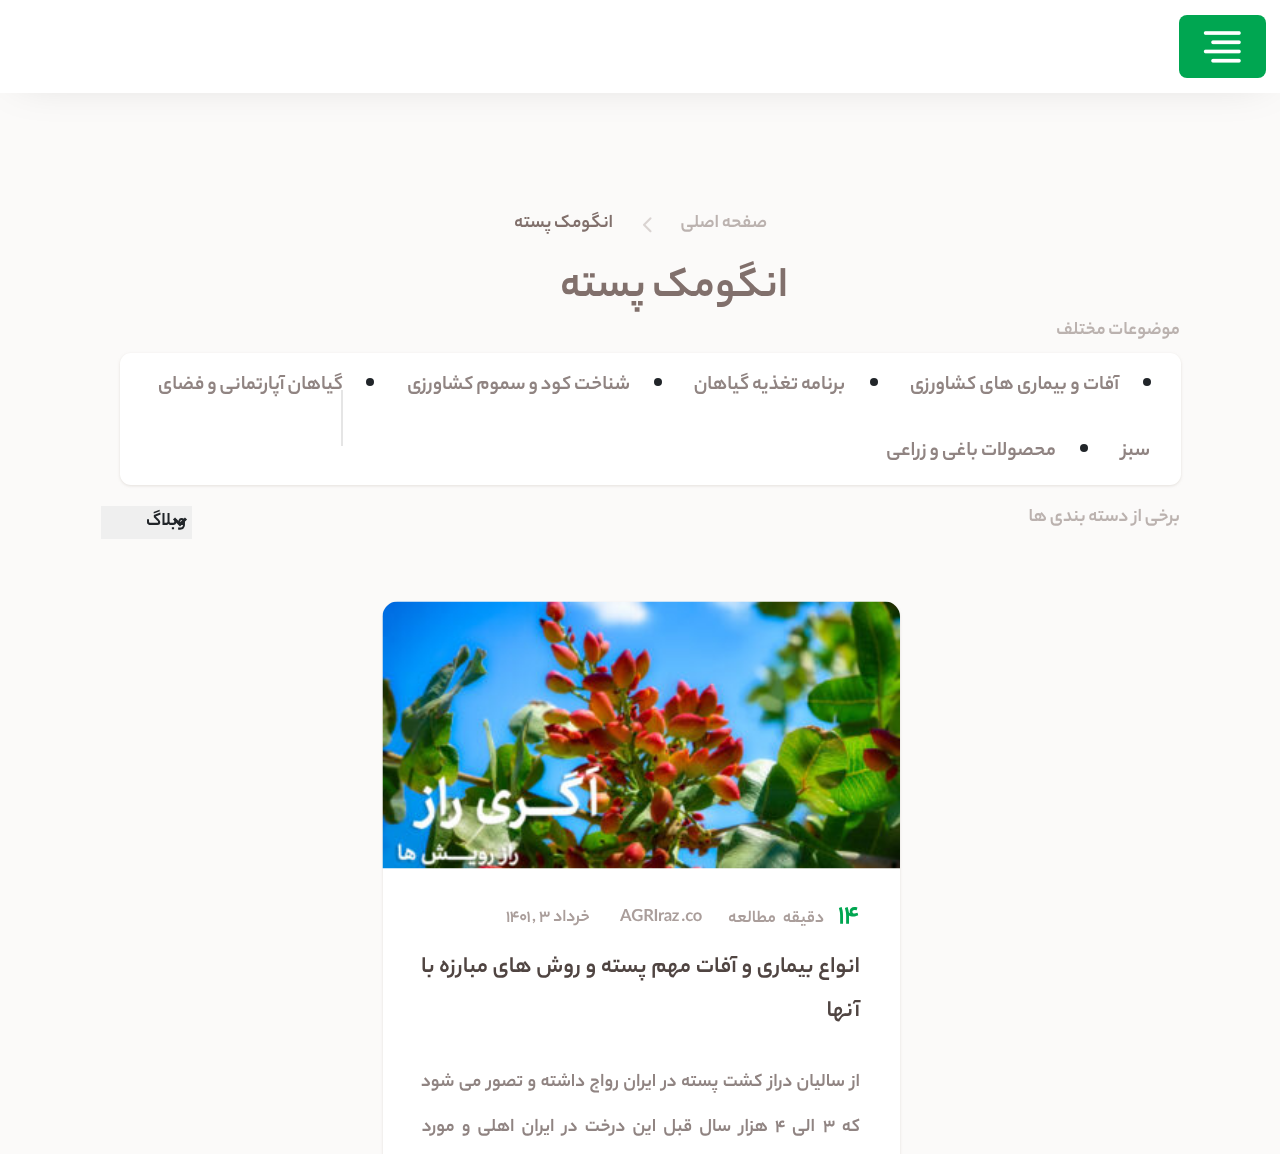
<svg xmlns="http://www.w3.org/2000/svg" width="1280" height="1154">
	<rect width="100%" height="100%" fill="#FBFAF9" />
	<rect x="20" y="21" width="1242" height="54" fill="#000000" fill-opacity="0.2" filter="blur(22.5px)" />
	<rect x="0" y="0" width="1280" height="93" fill="#FFFFFF" />
	<rect x="1179" y="15" width="87" height="63" rx="8" fill="#00A651" />
	<image x="1203" y="31" width="38" height="32" href="assets/img1.png" />
	<text x="767" y="227" font-family="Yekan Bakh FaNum" font-size="19.5" font-weight="700" direction="rtl" fill="#BBB2AF">صفحه اصلی</text>
	<image x="643" y="217" width="9" height="16" href="assets/img2.png" />
	<text x="613" y="227" font-family="Yekan Bakh FaNum" font-size="19.5" font-weight="700" direction="rtl" fill="#81706C">انگومک پسته</text>
	<text x="788" y="296" font-family="Yekan Bakh FaNum" font-size="45" font-weight="700" direction="rtl" fill="#81706C">انگومک پسته</text>
	<text x="1180" y="334" font-family="Yekan Bakh FaNum" font-size="19.5" font-weight="700" direction="rtl" fill="#BBB2AF">موضوعات مختلف</text>
	<rect x="120" y="354" width="1061" height="132" rx="11" fill="#97897B" fill-opacity="0.22" filter="blur(1.5px)" />
	<rect x="120" y="353" width="1061" height="132" rx="11" fill="#FFFFFF" />
	<circle cx="370" cy="382" r="4" fill="#212529" />
	<text x="343" y="389" font-family="Yekan Bakh FaNum" font-size="21" font-weight="700" direction="rtl" fill="#908482">گیاهان آپارتمانی و فضای</text>
	<rect x="341" y="390" width="2" height="56" fill="#E5E5E5" />
	<text x="1150" y="455" font-family="Yekan Bakh FaNum" font-size="21" font-weight="700" direction="rtl" fill="#908482">سبز</text>
	<circle cx="1147" cy="382" r="4" fill="#212529" />
	<text x="1119" y="389" word-spacing="0.5" font-family="Yekan Bakh FaNum" font-size="21" font-weight="700" direction="rtl" fill="#908482">آفات و بیماری های کشاورزی</text>
	<circle cx="874" cy="382" r="4" fill="#212529" />
	<text x="845" y="389" font-family="Yekan Bakh FaNum" font-size="21" font-weight="700" direction="rtl" fill="#908482">برنامه تغذیه گیاهان</text>
	<circle cx="658" cy="382" r="4" fill="#212529" />
	<text x="630" y="389" font-family="Yekan Bakh FaNum" font-size="21" font-weight="700" direction="rtl" fill="#908482">شناخت کود و سموم کشاورزی</text>
	<circle cx="1084" cy="448" r="4" fill="#212529" />
	<text x="1056" y="455" font-family="Yekan Bakh FaNum" font-size="21" font-weight="700" direction="rtl" fill="#908482">محصولات باغی و زراعی</text>
	<text x="1180" y="521" font-family="Yekan Bakh FaNum" font-size="19.5" font-weight="700" direction="rtl" fill="#BBB2AF">برخی از دسته بندی ها</text>
	<rect x="101" y="506" width="91" height="33" fill="#EFEFEF" />
	<path d="M174 518.5L180 524.5L186 518.5" fill="none" stroke="#212529" stroke-width="3" />
	<text x="186" y="525" font-family="Yekan Bakh FaNum" font-size="19.5" font-weight="700" direction="rtl" fill="#212529">وبلاگ</text>
	<rect x="383" y="603" width="517" height="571" rx="15" fill="#97897B" fill-opacity="0.22" filter="blur(1.5px)" />
	<rect x="383" y="602" width="517" height="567" rx="15" fill="#FFFFFF" />
	<image x="382" y="601" width="518" height="268" href="assets/img3.png" />
	<text x="838" y="922" font-family="Yekan Bakh FaNum" font-size="28" font-weight="700" letter-spacing="-0.4" fill="#00A651">14</text>
	<text x="824" y="922" word-spacing="4.25" font-family="Yekan Bakh FaNum" font-size="18" font-weight="700" letter-spacing="-0.4" direction="rtl" fill="#AA9E9B">دقیقه مطالعه</text>
	<text x="620" y="921" font-family="Yekan Bakh FaNum" font-size="18" font-weight="700" letter-spacing="-0.4" fill="#AA9E9B">AGRIraz .co</text>
	<text x="590" y="921" font-family="Yekan Bakh FaNum" font-size="18" font-weight="700" letter-spacing="-0.4" direction="rtl" fill="#AA9E9B">خرداد</text>
	<g font-family="Yekan Bakh FaNum" font-size="18" font-weight="700" letter-spacing="-0.4" fill="#AA9E9B">
		<text x="539" y="921">3</text>
		<text x="532" y="921">,</text>
		<text x="506" y="921">1401</text>
	</g>
	<g font-family="Yekan Bakh FaNum" font-size="24" font-weight="700" direction="rtl" fill="#504542">
		<text x="860" y="972" word-spacing="1.25">انواع بیماری و آفات مهم پسته و روش های مبارزه با</text>
		<text x="860" y="1016">آنها</text>
	</g>
	<g font-family="Yekan Bakh FaNum" font-size="19.5" font-weight="700" direction="rtl" fill="#908482">
		<text x="860" y="1086" word-spacing="1.6">از سالیان دراز کشت پسته در ایران رواج داشته و تصور می شود</text>
		<text x="860" y="1131">که</text>
	</g>
	<text x="823" y="1131" font-family="Yekan Bakh FaNum" font-size="19.5" font-weight="700" fill="#908482">3</text>
	<text x="815" y="1131" font-family="Yekan Bakh FaNum" font-size="19.5" font-weight="700" direction="rtl" fill="#908482">الی</text>
	<text x="775" y="1131" font-family="Yekan Bakh FaNum" font-size="19.5" font-weight="700" fill="#908482">4</text>
	<text x="768" y="1131" word-spacing="4.25" font-family="Yekan Bakh FaNum" font-size="19.5" font-weight="700" direction="rtl" fill="#908482">هزار سال قبل این درخت در ایران اهلی و مورد</text>
</svg>
